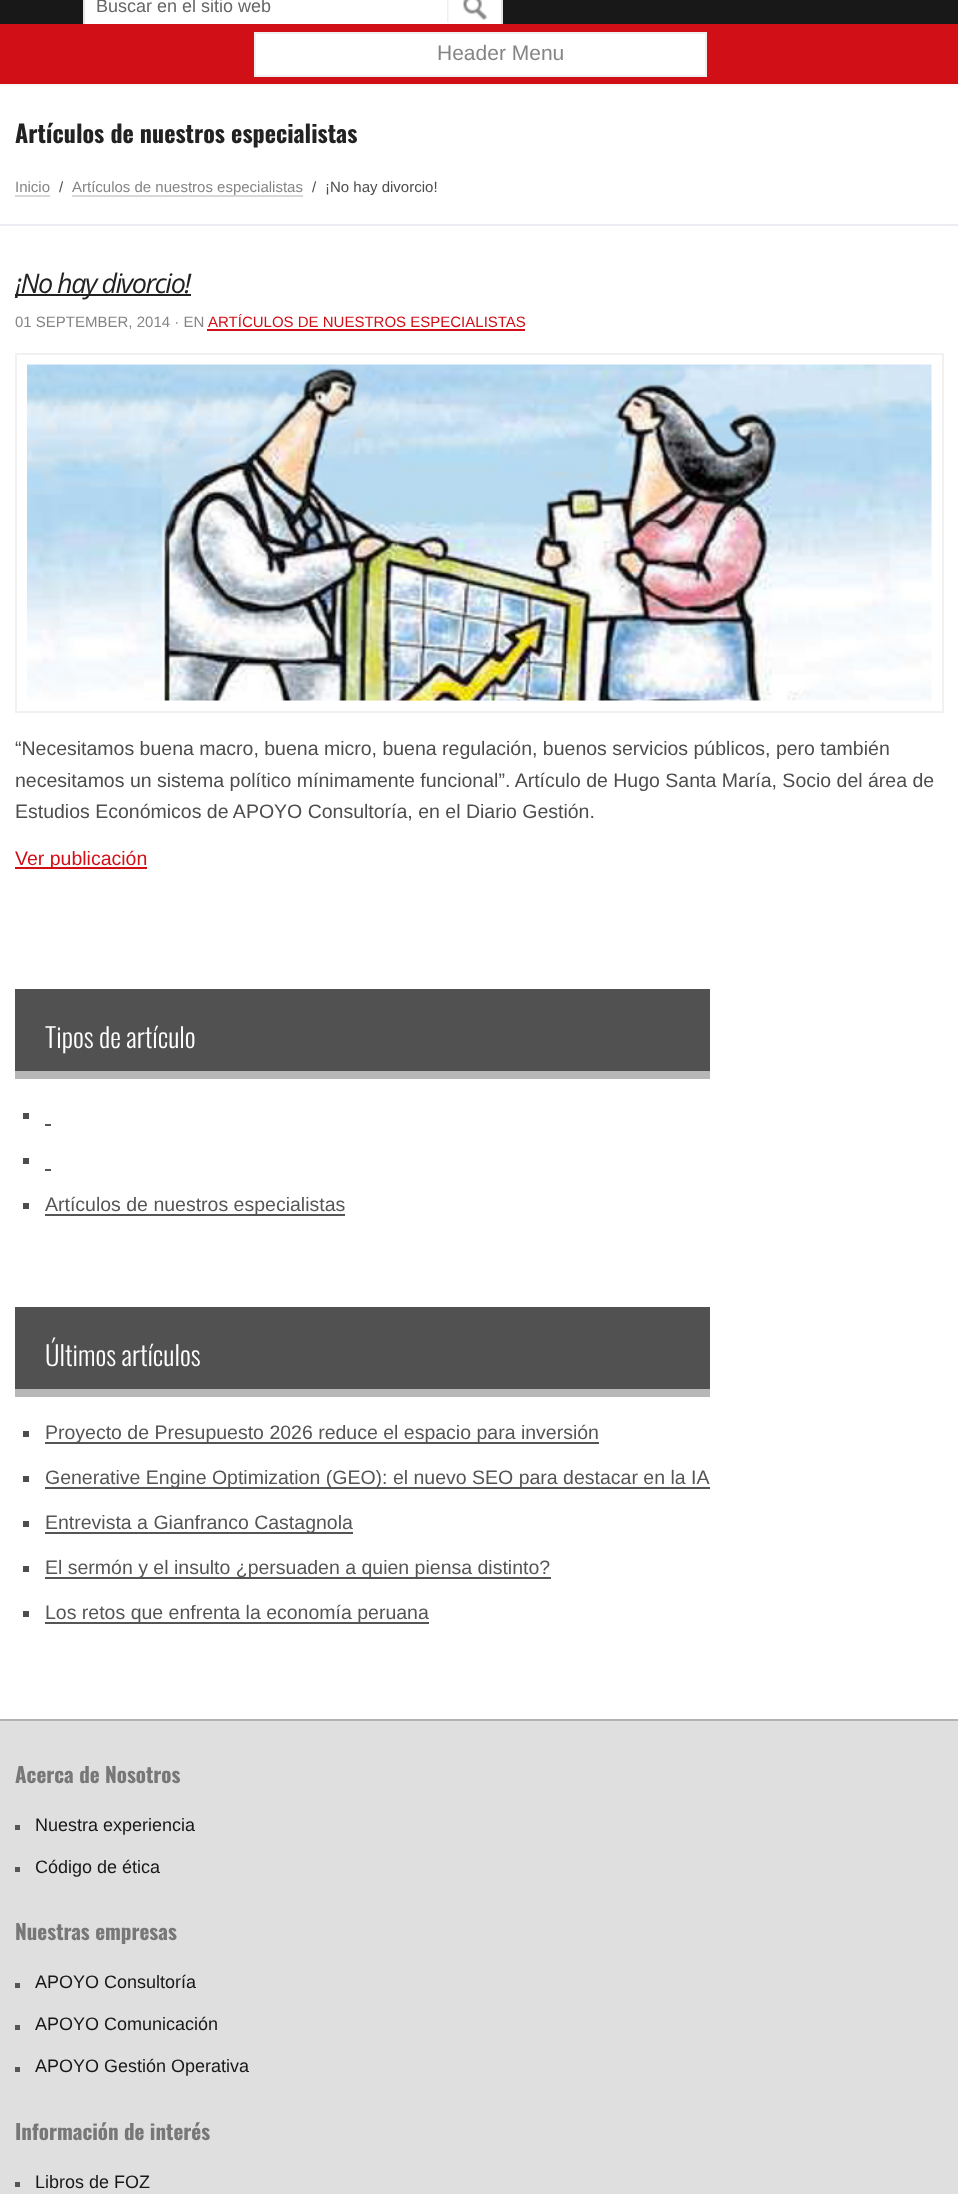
<svg xmlns="http://www.w3.org/2000/svg" width="958" height="2194">
	<rect width="100%" height="100%" fill="#FFFFFF" />
	<rect x="0" y="-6" width="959" height="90" fill="#000000" fill-opacity="0.1" filter="blur(2px)" />
	<rect x="0" y="0" width="958" height="24" fill="#181818" />
	<rect x="85" y="0" width="416" height="24" fill="#FFFFFF" />
	<rect x="84" y="-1" width="418" height="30" fill="none" stroke="#E4E4E4" stroke-width="2" />
	<text x="96" y="12" font-family="Liberation Sans" font-size="18" fill="#666666">Buscar en el sitio web</text>
	<image x="447" y="0" width="41" height="23" href="assets/img1.png" />
	<rect x="0" y="24" width="958" height="60" fill="#D10F17" />
	<rect x="255" y="33" width="451" height="43" fill="#FFFFFF" stroke="#F0F0F0" stroke-width="2" />
	<text x="437" y="60" font-family="Liberation Sans" font-size="21" fill="#858585">Header Menu</text>
	<rect x="0" y="224" width="958" height="2" fill="#ECEDF3" />
	<text x="15" y="143" font-family="Oswald" font-size="24" font-weight="700" fill="#222222">Artículos de nuestros especialistas</text>
	<text x="15" y="192" font-family="Liberation Sans" font-size="15" fill="#858585">Inicio</text>
	<rect x="15" y="195" width="35" height="2" fill="#D8D8D8" />
	<text x="59" y="192" font-family="Liberation Sans" font-size="15" fill="#4D4D4D">/</text>
	<rect x="72" y="195" width="231" height="2" fill="#D8D8D8" />
	<text x="72" y="192" font-family="Liberation Sans" font-size="15" fill="#858585">Artículos de nuestros especialistas</text>
	<g font-family="Liberation Sans" font-size="15" fill="#4D4D4D">
		<text x="312" y="192">/</text>
		<text x="325" y="192">¡No hay divorcio!</text>
	</g>
	<rect x="15" y="294" width="176" height="2" fill="#222222" />
	<text x="15" y="293" font-family="Open Sans" font-size="27" font-style="italic" letter-spacing="-1.5" fill="#222222">¡No hay divorcio!</text>
	<text x="15" y="327" font-family="Liberation Sans" font-size="15" fill="#858585">01 SEPTEMBER, 2014 · EN</text>
	<text x="208" y="327" font-family="Liberation Sans" font-size="15" fill="#D10F17">ARTÍCULOS DE NUESTROS ESPECIALISTAS</text>
	<rect x="207" y="329" width="318" height="2" fill="#D10F17" />
	<rect x="16" y="354" width="927" height="358" fill="none" stroke="#F1F1F1" stroke-width="2" />
	<image x="27" y="364" width="905" height="337" href="assets/img2.png" />
	<g font-family="Liberation Sans" font-size="19.5" fill="#4D4D4D">
		<text x="15" y="755">“Necesitamos buena macro, buena micro, buena regulación, buenos servicios públicos, pero también</text>
		<text x="15" y="787">necesitamos un sistema político mínimamente funcional”. Artículo de Hugo Santa María, Socio del área de</text>
		<text x="15" y="818">Estudios Económicos de APOYO Consultoría, en el Diario Gestión.</text>
	</g>
	<rect x="15" y="867" width="132" height="2" fill="#D10F17" />
	<text x="15" y="865" font-family="Liberation Sans" font-size="19.5" fill="#D10F17">Ver publicación</text>
	<rect x="15" y="989" width="695" height="82" fill="#515151" />
	<rect x="15" y="1071" width="695" height="8" fill="#B7B7B7" />
	<text x="45" y="1048" font-family="Oswald" font-size="27" font-weight="300" fill="#FFFFFF">Tipos de artículo</text>
	<rect x="23" y="1113" width="6" height="6" fill="#4D4D4D" />
	<rect x="45" y="1124" width="6" height="2" fill="#555555" />
	<rect x="23" y="1158" width="6" height="6" fill="#4D4D4D" />
	<rect x="45" y="1169" width="6" height="2" fill="#555555" />
	<rect x="23" y="1203" width="6" height="6" fill="#4D4D4D" />
	<rect x="45" y="1214" width="300" height="2" fill="#555555" />
	<text x="45" y="1211" font-family="Liberation Sans" font-size="19.5" fill="#555555">Artículos de nuestros especialistas</text>
	<rect x="15" y="1307" width="695" height="82" fill="#515151" />
	<rect x="15" y="1389" width="695" height="8" fill="#B7B7B7" />
	<text x="45" y="1366" font-family="Oswald" font-size="27" font-weight="300" fill="#FFFFFF">Últimos artículos</text>
	<rect x="23" y="1431" width="6" height="6" fill="#4D4D4D" />
	<rect x="45" y="1442" width="554" height="2" fill="#555555" />
	<text x="45" y="1439" font-family="Liberation Sans" font-size="19.5" fill="#555555">Proyecto de Presupuesto 2026 reduce el espacio para inversión</text>
	<rect x="23" y="1476" width="6" height="6" fill="#4D4D4D" />
	<rect x="45" y="1487" width="665" height="2" fill="#555555" />
	<text x="45" y="1484" font-family="Liberation Sans" font-size="19.5" fill="#555555">Generative Engine Optimization (GEO): el nuevo SEO para destacar en la IA</text>
	<rect x="23" y="1521" width="6" height="6" fill="#4D4D4D" />
	<rect x="45" y="1532" width="308" height="2" fill="#555555" />
	<text x="45" y="1529" font-family="Liberation Sans" font-size="19.5" fill="#555555">Entrevista a Gianfranco Castagnola</text>
	<rect x="23" y="1566" width="6" height="6" fill="#4D4D4D" />
	<rect x="45" y="1577" width="506" height="2" fill="#555555" />
	<text x="45" y="1574" font-family="Liberation Sans" font-size="19.5" fill="#555555">El sermón y el insulto ¿persuaden a quien piensa distinto?</text>
	<rect x="23" y="1611" width="6" height="6" fill="#4D4D4D" />
	<rect x="45" y="1622" width="384" height="2" fill="#555555" />
	<text x="45" y="1619" font-family="Liberation Sans" font-size="19.5" fill="#555555">Los retos que enfrenta la economía peruana</text>
	<rect x="0" y="1721" width="958" height="473" fill="#DFDFDF" />
	<rect x="0" y="1719" width="958" height="2" fill="#B2B2B2" />
	<text x="15" y="1783" font-family="Oswald" font-size="21" font-weight="700" fill="#777777">Acerca de Nosotros</text>
	<rect x="15" y="1825" width="5" height="5" fill="#565656" />
	<text x="35" y="1831" font-family="Liberation Sans" font-size="18" fill="#171717">Nuestra experiencia</text>
	<rect x="15" y="1867" width="5" height="5" fill="#565656" />
	<text x="35" y="1873" font-family="Liberation Sans" font-size="18" fill="#171717">Código de ética</text>
	<text x="15" y="1940" font-family="Oswald" font-size="21" font-weight="700" fill="#777777">Nuestras empresas</text>
	<rect x="15" y="1983" width="5" height="5" fill="#565656" />
	<text x="35" y="1988" font-family="Liberation Sans" font-size="18" fill="#171717">APOYO Consultoría</text>
	<rect x="15" y="2025" width="5" height="5" fill="#565656" />
	<text x="35" y="2030" font-family="Liberation Sans" font-size="18" fill="#171717">APOYO Comunicación</text>
	<rect x="15" y="2067" width="5" height="5" fill="#565656" />
	<text x="35" y="2072" font-family="Liberation Sans" font-size="18" fill="#171717">APOYO Gestión Operativa</text>
	<text x="15" y="2140" font-family="Oswald" font-size="21" font-weight="700" fill="#777777">Información de interés</text>
	<rect x="15" y="2182" width="5" height="5" fill="#565656" />
	<text x="35" y="2188" font-family="Liberation Sans" font-size="18" fill="#171717">Libros de FOZ</text>
</svg>
